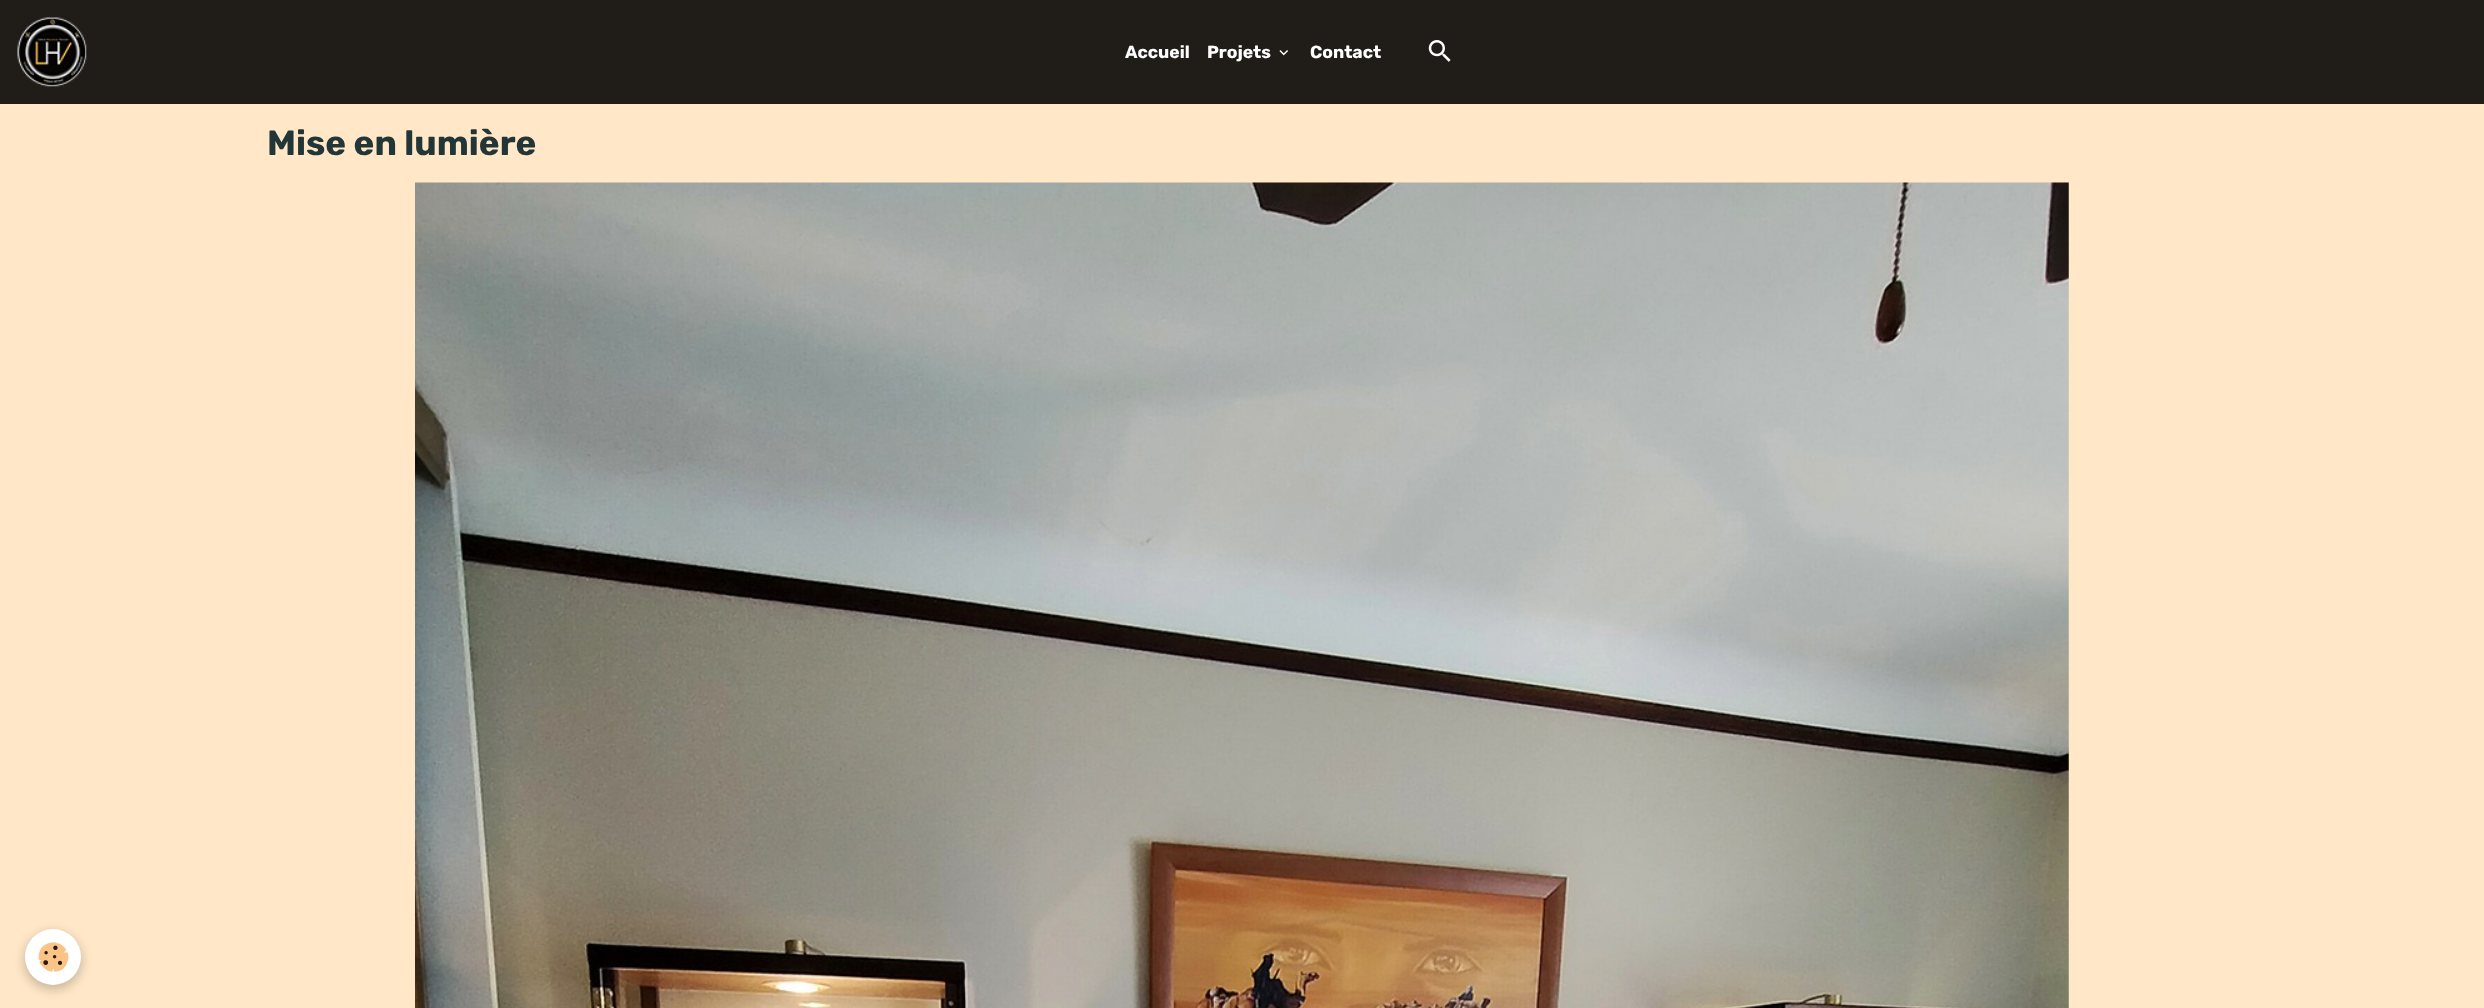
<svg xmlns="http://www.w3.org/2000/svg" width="2484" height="1008">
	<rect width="100%" height="100%" fill="#FFE7C7" />
	<rect x="0" y="0" width="2484" height="104" fill="#201D19" />
	<image x="17" y="17" width="70" height="70" href="assets/img1.png" />
	<g font-family="Rubik" font-size="17.5" font-weight="700" fill="#FFFFFF">
		<text x="1125" y="58">Accueil</text>
		<text x="1207" y="58">Projets</text>
	</g>
	<image x="1279" y="50" width="9" height="6" href="assets/img2.png" />
	<text x="1310" y="58" font-family="Rubik" font-size="17.5" font-weight="700" fill="#FFFFFF">Contact</text>
	<image x="1428" y="40" width="23" height="22" href="assets/img3.png" />
	<text x="267" y="155" font-family="Rubik" font-size="35" font-weight="700" fill="#233637">Mise en lumière</text>
	<image x="415" y="182" width="1654" height="826" href="assets/img4.png" />
	<rect x="25" y="933" width="56" height="56" rx="28" fill="#000000" fill-opacity="0.24" filter="blur(6px)" />
	<circle cx="53" cy="957" r="28" fill="#FFFFFF" />
	<image x="38" y="942" width="31" height="30" href="assets/img5.png" />
</svg>
